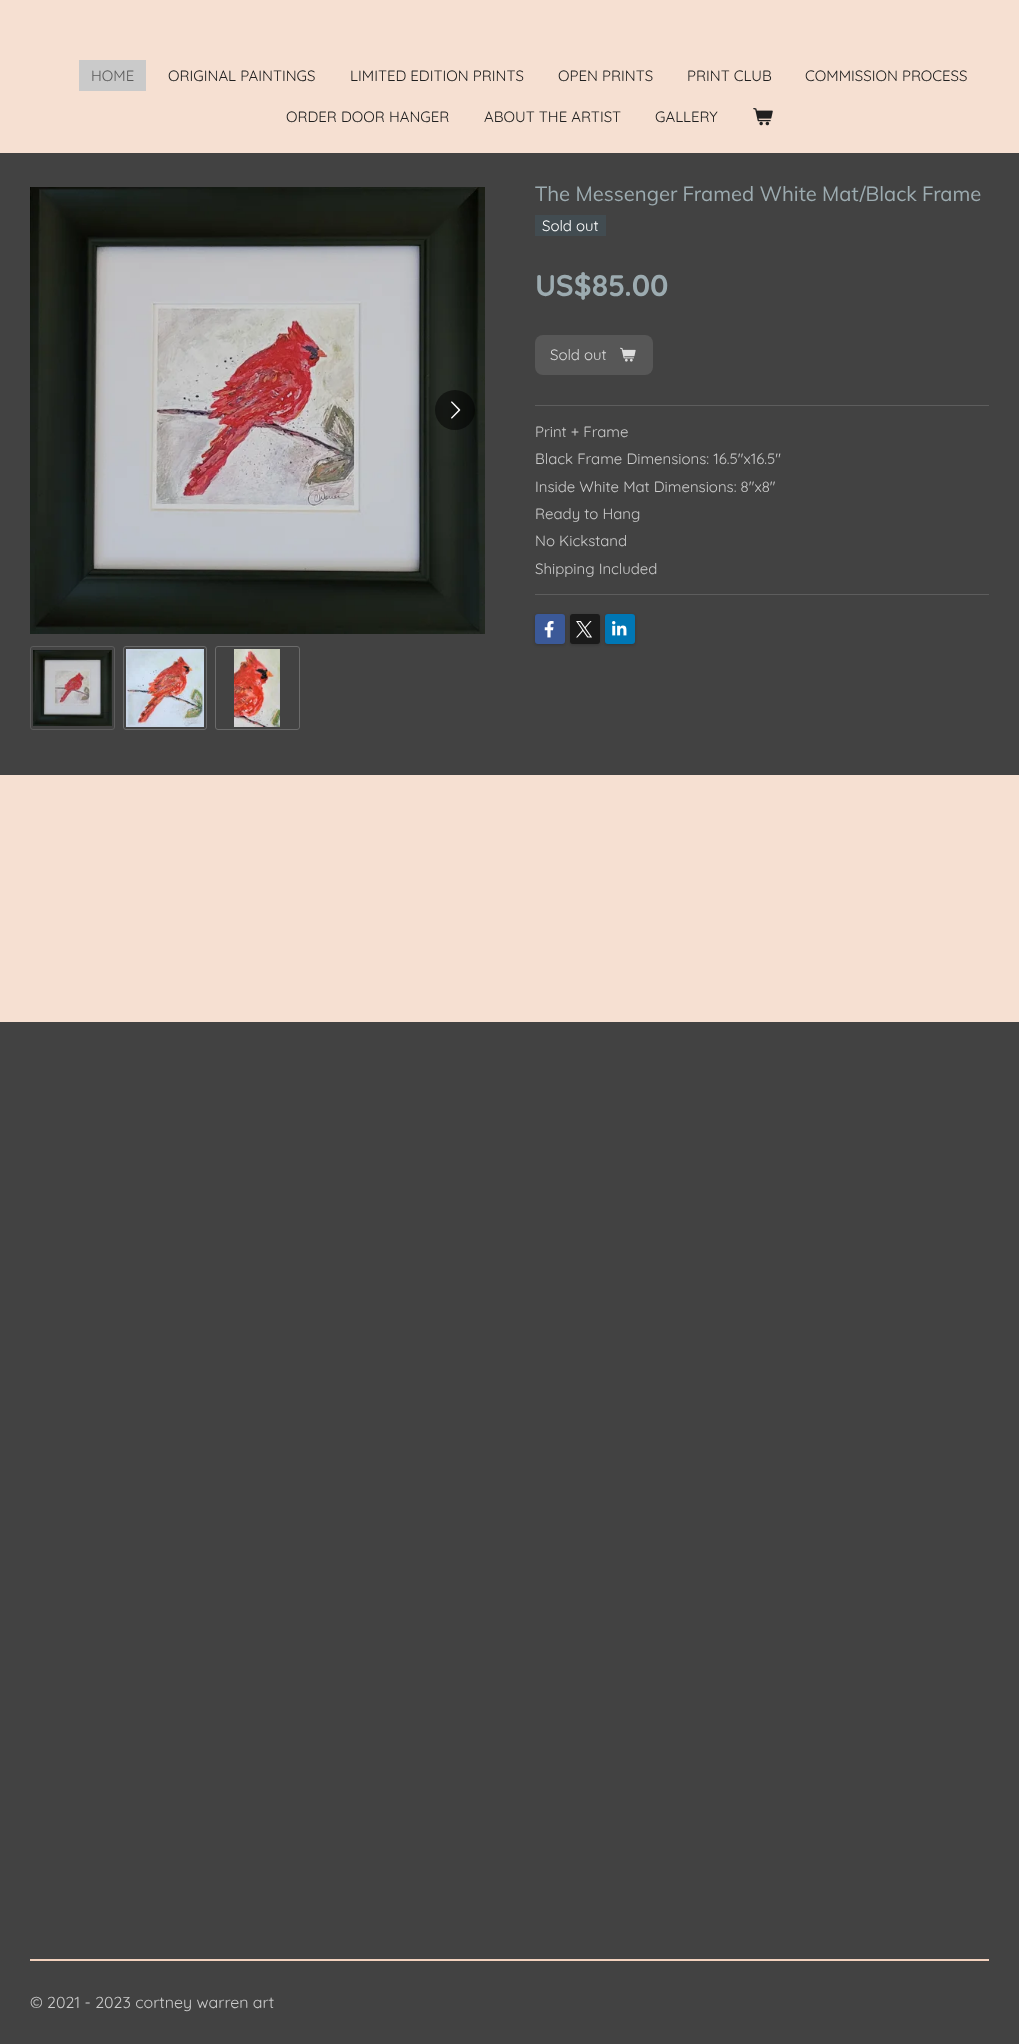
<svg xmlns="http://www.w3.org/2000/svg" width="1019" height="2044">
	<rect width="100%" height="100%" fill="#424242" />
	<rect x="0" y="0" width="1019" height="1022" fill="#F6E0D2" />
	<rect x="79" y="60" width="67" height="31" fill="#CACACA" />
	<text x="91" y="81" font-family="Quicksand" font-size="15" fill="#5B5B5B">HOME</text>
	<g font-family="Quicksand" font-size="15" fill="#202020">
		<text x="168" y="81">ORIGINAL PAINTINGS</text>
		<text x="350" y="81">LIMITED EDITION PRINTS</text>
		<text x="558" y="81">OPEN PRINTS</text>
		<text x="687" y="81">PRINT CLUB</text>
		<text x="805" y="81">COMMISSION PROCESS</text>
		<text x="286" y="122">ORDER DOOR HANGER</text>
		<text x="484" y="122">ABOUT THE ARTIST</text>
		<text x="655" y="122">GALLERY</text>
	</g>
	<image x="753" y="108" width="20" height="18" href="assets/img1.png" />
	<rect x="0" y="153" width="1019" height="622" fill="#424242" />
	<image x="30" y="187" width="455" height="447" href="assets/img2.png" />
	<circle cx="455" cy="410" r="20" fill="#000000" fill-opacity="0.5" />
	<image x="451" y="401" width="10" height="18" href="assets/img3.png" />
	<rect x="30.5" y="646.5" width="84" height="83" rx="2.5" fill="none" stroke="#5C5C5C" />
	<image x="33" y="650" width="79" height="76" href="assets/img4.png" />
	<rect x="123.5" y="646.5" width="83" height="83" rx="2.5" fill="none" stroke="#6B6B6B" />
	<image x="126" y="649" width="78" height="78" href="assets/img5.png" />
	<rect x="215.5" y="646.5" width="84" height="83" rx="2.5" fill="none" stroke="#6B6B6B" />
	<image x="234" y="649" width="46" height="78" href="assets/img6.png" />
	<text x="535" y="201" font-family="Muli" font-size="20.3" fill="#9CABB0">The Messenger Framed White Mat/Black Frame</text>
	<rect x="535" y="215" width="71" height="21" fill="#424C51" />
	<text x="542" y="231" font-family="Quicksand" font-size="15" fill="#FFFFFF">Sold out</text>
	<text x="535" y="296" font-family="Quicksand" font-size="30" font-weight="700" fill="#9CABB0">US$85.00</text>
	<rect x="535" y="335" width="118" height="40" rx="8" fill="#575757" />
	<text x="550" y="360" font-family="Quicksand" font-size="15" fill="#D9D9D9">Sold out</text>
	<image x="620" y="347" width="16" height="15" href="assets/img7.png" />
	<rect x="535" y="405" width="454" height="1" fill="#5D5D5D" />
	<g font-family="Quicksand" font-size="15" fill="#CACACA">
		<text x="535" y="437">Print + Frame</text>
		<text x="535" y="464">Black Frame Dimensions: 16.5"x16.5"</text>
		<text x="535" y="492">Inside White Mat Dimensions: 8"x8"</text>
		<text x="535" y="519">Ready to Hang</text>
		<text x="535" y="546">No Kickstand</text>
		<text x="535" y="574">Shipping Included</text>
	</g>
	<rect x="535" y="594" width="454" height="1" fill="#5D5D5D" />
	<rect x="535" y="615" width="30" height="30" rx="3" fill="#000000" fill-opacity="0.2" filter="blur(1.5px)" />
	<rect x="535" y="614" width="30" height="30" rx="3" fill="#3B5998" />
	<image x="544" y="621" width="10" height="17" href="assets/img8.png" />
	<rect x="570" y="615" width="30" height="30" rx="3" fill="#000000" fill-opacity="0.2" filter="blur(1.5px)" />
	<rect x="570" y="614" width="30" height="30" rx="3" fill="#1A1A1A" />
	<image x="576" y="621" width="16" height="17" href="assets/img9.png" />
	<rect x="605" y="615" width="30" height="30" rx="3" fill="#000000" fill-opacity="0.2" filter="blur(1.5px)" />
	<rect x="605" y="614" width="30" height="30" rx="3" fill="#0077B5" />
	<image x="612" y="621" width="15" height="15" href="assets/img10.png" />
	<rect x="30" y="1959" width="959" height="2" fill="#F2D1BD" />
	<text x="30" y="2008" font-family="Quicksand" font-size="16" fill="#CACACA">© 2021 - 2023 cortney warren art</text>
</svg>
